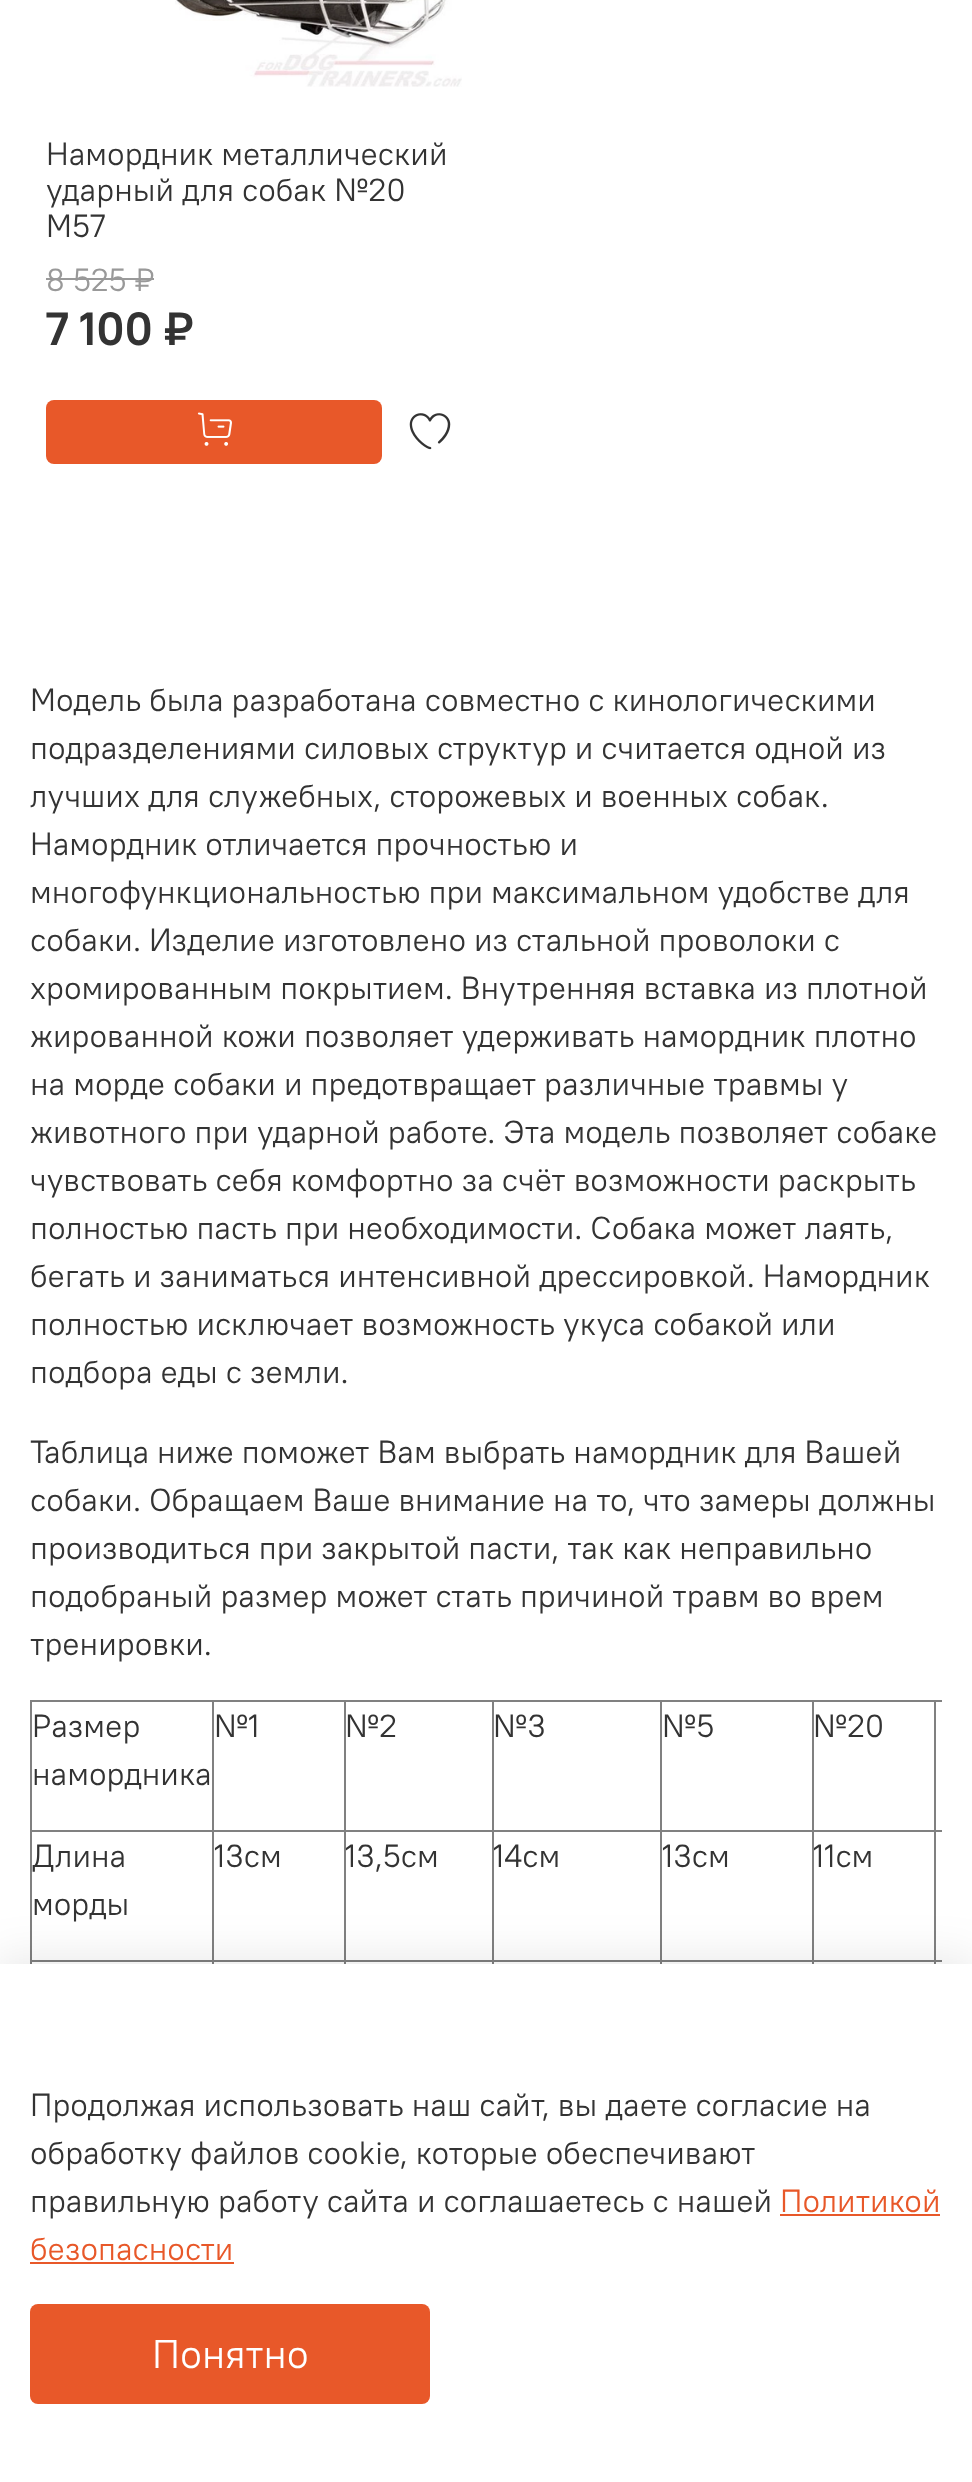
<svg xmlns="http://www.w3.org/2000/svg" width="972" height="2482">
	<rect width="100%" height="100%" fill="#FFFFFF" />
	<image x="175" y="0" width="287" height="87" href="assets/img1.png" />
	<g font-family="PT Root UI" font-size="32" fill="#333333">
		<text x="46" y="165">Намордник металлический</text>
		<text x="46" y="201">ударный для собак №20</text>
		<text x="46" y="237">М57</text>
	</g>
	<text x="46" y="291" font-family="PT Root UI" font-size="32" fill="#999999">8 525 ₽</text>
	<rect x="46" y="278" width="108" height="2" fill="#999999" />
	<text x="46" y="345" font-family="PT Root UI" font-size="46.5" font-weight="700" fill="#333333">7 100 ₽</text>
	<rect x="46" y="400" width="336" height="64" rx="8" fill="#E85829" />
	<image x="197" y="412" width="35" height="34" href="assets/img2.png" />
	<image x="409" y="413" width="42" height="37" href="assets/img3.png" />
	<g font-family="PT Root UI" font-size="32" fill="#333333">
		<text x="30" y="711">Модель была разработана совместно с кинологическими</text>
		<text x="30" y="759">подразделениями силовых структур и считается одной из</text>
		<text x="30" y="807">лучших для служебных, сторожевых и военных собак.</text>
		<text x="30" y="855">Намордник отличается прочностью и</text>
		<text x="30" y="903">многофункциональностью при максимальном удобстве для</text>
		<text x="30" y="951">собаки. Изделие изготовлено из стальной проволоки с</text>
		<text x="30" y="999">хромированным покрытием. Внутренняя вставка из плотной</text>
		<text x="30" y="1047">жированной кожи позволяет удерживать намордник плотно</text>
		<text x="30" y="1095">на морде собаки и предотвращает различные травмы у</text>
		<text x="30" y="1143">животного при ударной работе. Эта модель позволяет собаке</text>
		<text x="30" y="1191">чувствовать себя комфортно за счёт возможности раскрыть</text>
		<text x="30" y="1239">полностью пасть при необходимости. Собака может лаять,</text>
		<text x="30" y="1287">бегать и заниматься интенсивной дрессировкой. Намордник</text>
		<text x="30" y="1335">полностью исключает возможность укуса собакой или</text>
		<text x="30" y="1383">подбора еды с земли.</text>
		<text x="30" y="1463">Таблица ниже поможет Вам выбрать намордник для Вашей</text>
		<text x="30" y="1511">собаки. Обращаем Ваше внимание на то, что замеры должны</text>
		<text x="30" y="1559">производиться при закрытой пасти, так как неправильно</text>
		<text x="30" y="1607">подобраный размер может стать причиной травм во врем</text>
		<text x="30" y="1655">тренировки.</text>
	</g>
	<rect x="30" y="1700" width="912" height="2" fill="#808080" />
	<rect x="30" y="1700" width="2" height="264" fill="#808080" />
	<g font-family="PT Root UI" font-size="32" fill="#333333">
		<text x="32" y="1737">Размер</text>
		<text x="32" y="1785">намордника</text>
	</g>
	<rect x="934" y="1830" width="8" height="2" fill="#808080" />
	<rect x="934" y="1960" width="8" height="2" fill="#808080" />
	<rect x="934" y="1960" width="2" height="4" fill="#808080" />
	<rect x="812" y="1960" width="124" height="2" fill="#808080" />
	<rect x="934" y="1830" width="2" height="132" fill="#808080" />
	<rect x="812" y="1830" width="124" height="2" fill="#808080" />
	<rect x="812" y="1960" width="2" height="4" fill="#808080" />
	<rect x="660" y="1960" width="154" height="2" fill="#808080" />
	<rect x="812" y="1830" width="2" height="132" fill="#808080" />
	<rect x="660" y="1830" width="154" height="2" fill="#808080" />
	<rect x="660" y="1960" width="2" height="4" fill="#808080" />
	<rect x="492" y="1960" width="170" height="2" fill="#808080" />
	<rect x="660" y="1830" width="2" height="132" fill="#808080" />
	<rect x="492" y="1830" width="170" height="2" fill="#808080" />
	<rect x="492" y="1960" width="2" height="4" fill="#808080" />
	<rect x="344" y="1960" width="150" height="2" fill="#808080" />
	<rect x="492" y="1830" width="2" height="132" fill="#808080" />
	<rect x="344" y="1830" width="150" height="2" fill="#808080" />
	<rect x="344" y="1960" width="2" height="4" fill="#808080" />
	<rect x="212" y="1960" width="134" height="2" fill="#808080" />
	<rect x="344" y="1830" width="2" height="132" fill="#808080" />
	<rect x="212" y="1830" width="134" height="2" fill="#808080" />
	<rect x="212" y="1960" width="2" height="4" fill="#808080" />
	<rect x="30" y="1960" width="184" height="2" fill="#808080" />
	<rect x="212" y="1830" width="2" height="132" fill="#808080" />
	<rect x="30" y="1830" width="184" height="2" fill="#808080" />
	<rect x="212" y="1700" width="2" height="132" fill="#808080" />
	<text x="214" y="1737" font-family="PT Root UI" font-size="32" fill="#333333">№1</text>
	<rect x="344" y="1700" width="2" height="132" fill="#808080" />
	<text x="345" y="1737" font-family="PT Root UI" font-size="32" fill="#333333">№2</text>
	<rect x="492" y="1700" width="2" height="132" fill="#808080" />
	<text x="493" y="1737" font-family="PT Root UI" font-size="32" fill="#333333">№3</text>
	<rect x="660" y="1700" width="2" height="132" fill="#808080" />
	<text x="662" y="1737" font-family="PT Root UI" font-size="32" fill="#333333">№5</text>
	<rect x="812" y="1700" width="2" height="132" fill="#808080" />
	<text x="813" y="1737" font-family="PT Root UI" font-size="32" fill="#333333">№20</text>
	<rect x="934" y="1700" width="2" height="132" fill="#808080" />
	<g font-family="PT Root UI" font-size="32" fill="#333333">
		<text x="32" y="1867">Длина</text>
		<text x="32" y="1915">морды</text>
		<text x="214" y="1867">13см</text>
		<text x="345" y="1867">13,5см</text>
		<text x="493" y="1867">14см</text>
		<text x="662" y="1867">13см</text>
		<text x="813" y="1867">11см</text>
	</g>
	<rect x="-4" y="1958" width="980" height="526" fill="#000000" fill-opacity="0.09" filter="blur(23px)" />
	<rect x="0" y="1964" width="972" height="518" fill="#FFFFFF" />
	<g font-family="PT Root UI" font-size="32" fill="#333333">
		<text x="30" y="2116">Продолжая использовать наш сайт, вы даете согласие на</text>
		<text x="30" y="2164">обработку файлов cookie, которые обеспечивают</text>
		<text x="30" y="2212">правильную работу сайта и соглашаетесь с нашей</text>
	</g>
	<text x="780" y="2212" font-family="PT Root UI" font-size="32" fill="#E85829">Политикой</text>
	<rect x="780" y="2214" width="160" height="2" fill="#E85829" />
	<text x="30" y="2260" font-family="PT Root UI" font-size="32" fill="#E85829">безопасности</text>
	<rect x="30" y="2262" width="204" height="2" fill="#E85829" />
	<rect x="30" y="2304" width="400" height="100" rx="8" fill="#E85829" />
	<text x="152" y="2368" font-family="PT Root UI" font-size="40" fill="#FFFFFF">Понятно</text>
</svg>
